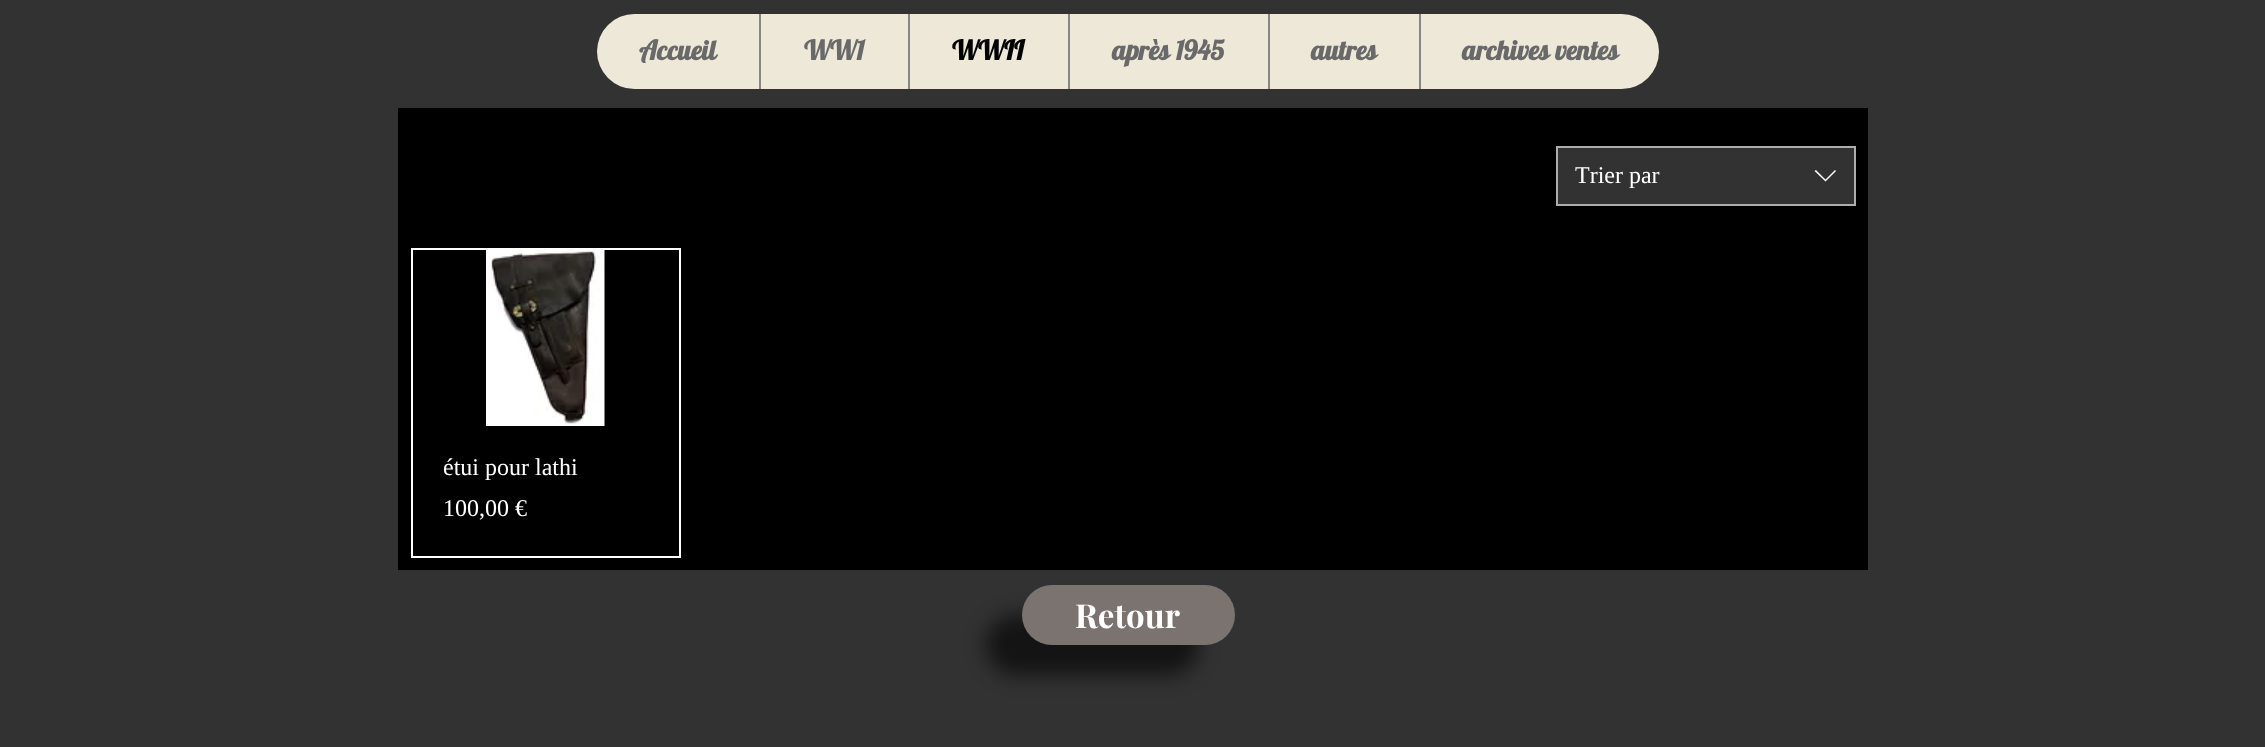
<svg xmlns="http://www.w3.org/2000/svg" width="2265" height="747">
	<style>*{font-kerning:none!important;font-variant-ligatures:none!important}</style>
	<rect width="100%" height="100%" fill="#323232" />
	<rect x="597" y="14" width="1062" height="75" rx="37.5" fill="#EEE8D8" />
	<text x="639" y="60" font-family="Lobster" font-size="27" font-weight="700" fill="#696969">Accueil</text>
	<rect x="759" y="14" width="2" height="75" fill="#868686" />
	<text x="804" y="60" font-family="Lobster" font-size="27" font-weight="700" fill="#696969">WW1</text>
	<rect x="908" y="14" width="2" height="75" fill="#868686" />
	<text x="952" y="60" font-family="Lobster" font-size="27" font-weight="700" fill="#000000">WWII</text>
	<rect x="1068" y="14" width="2" height="75" fill="#868686" />
	<text x="1112" y="60" font-family="Lobster" font-size="27" font-weight="700" fill="#696969">après 1945</text>
	<rect x="1268" y="14" width="2" height="75" fill="#868686" />
	<text x="1311" y="60" font-family="Lobster" font-size="27" font-weight="700" fill="#696969">autres</text>
	<rect x="1419" y="14" width="2" height="75" fill="#868686" />
	<text x="1462" y="60" font-family="Lobster" font-size="27" font-weight="700" fill="#696969">archives ventes</text>
	<rect x="398" y="108" width="1470" height="462" fill="#000000" />
	<rect x="1557" y="147" width="298" height="58" fill="#323232" stroke="#ADADAD" stroke-width="2" />
	<text x="1575" y="183" font-family="Liberation Serif" font-size="24" fill="#FFFFFF">Trier par</text>
	<path d="M1835 170L1836 171L1825.5 181.5L1814.5 171L1816 170L1825.5 179.5Z" fill="#FFFFFF" fill-rule="evenodd" />
	<rect x="412" y="249" width="268" height="308" fill="none" stroke="#FFFFFF" stroke-width="2" />
	<image x="486" y="249" width="119" height="177" href="assets/img1.png" />
	<g font-family="Liberation Serif" font-size="24" fill="#FFFFFF">
		<text x="443" y="475">étui pour lathi</text>
		<text x="443" y="516">100,00 €</text>
	</g>
	<rect x="986" y="615" width="213" height="60" rx="30" fill="#000000" fill-opacity="0.6" filter="blur(10px)" />
	<rect x="1022" y="585" width="213" height="60" rx="30" fill="#7B736F" />
	<text x="1075" y="628" font-family="Playfair Display" font-size="33" font-weight="700" fill="#FFFFFF">Retour</text>
</svg>
